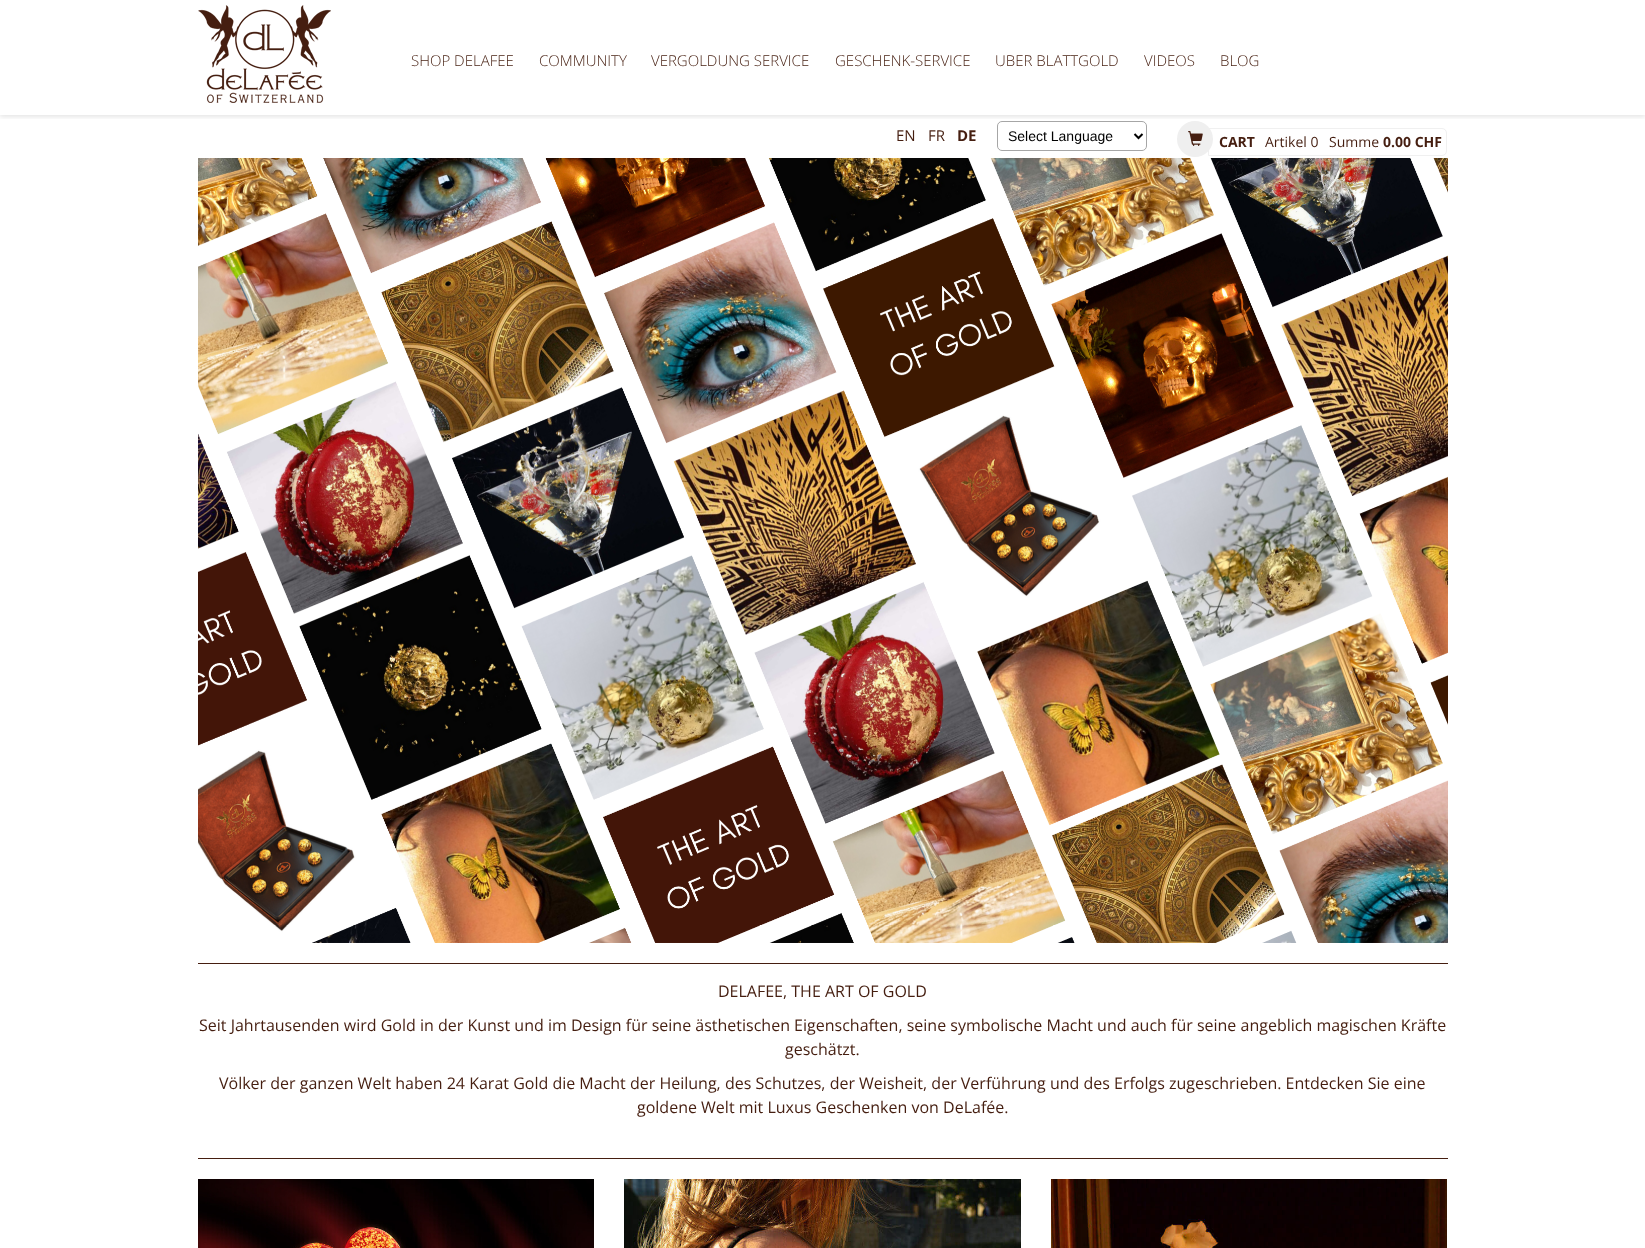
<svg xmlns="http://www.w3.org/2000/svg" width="1645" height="1248">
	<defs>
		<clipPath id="clip1"><rect x="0" y="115" width="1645" height="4" /></clipPath>
	</defs>
	<rect width="100%" height="100%" fill="#FFFFFF" />
	<g clip-path="url(#clip1)">
		<rect x="0" y="2" width="1645" height="115" fill="#000000" fill-opacity="0.1" filter="blur(2.5px)" />
	</g>
	<image x="198" y="5" width="133" height="98" href="assets/img1.png" />
	<g font-family="Open Sans" font-size="15" font-weight="300" fill="#451E10">
		<text x="411" y="66">SHOP DELAFEE</text>
		<text x="539" y="66">COMMUNITY</text>
		<text x="651" y="66">VERGOLDUNG SERVICE</text>
		<text x="835" y="66">GESCHENK-SERVICE</text>
		<text x="995" y="66">UBER BLATTGOLD</text>
		<text x="1144" y="66">VIDEOS</text>
		<text x="1220" y="66">BLOG</text>
	</g>
	<g font-family="Open Sans" font-size="15" fill="#451E10">
		<text x="896" y="141">EN</text>
		<text x="928" y="141">FR</text>
	</g>
	<text x="957" y="141" font-family="Open Sans" font-size="15" font-weight="700" fill="#451E10">DE</text>
	<rect x="997.5" y="121.5" width="149" height="29" rx="4.5" fill="none" stroke="#A6A6A6" />
	<path d="M1134.5 134L1138.5 138L1142.5 134" fill="none" stroke="#000000" stroke-width="2" />
	<text x="1008" y="141" font-family="Liberation Sans" font-size="14" fill="#000000">Select Language</text>
	<path d="M1208.5 128.5H1442C1444.5 128.5 1446.5 130.5 1446.5 133V151C1446.5 153.5 1444.5 155.5 1442 155.5H1208.5Z" fill="none" stroke="#F0F0F0" />
	<circle cx="1195" cy="139" r="18" fill="#EFEFEF" />
	<image x="1188" y="131" width="15" height="15" href="assets/img2.png" />
	<text x="1219" y="147" font-family="Open Sans" font-size="14" font-weight="700" fill="#451E10">CART</text>
	<g font-family="Open Sans" font-size="14" fill="#451E10">
		<text x="1265" y="147">Artikel 0</text>
		<text x="1329" y="147">Summe</text>
	</g>
	<text x="1383" y="147" font-family="Open Sans" font-size="14" font-weight="700" fill="#451E10">0.00 CHF</text>
	<image x="198" y="158" width="1250" height="785" href="assets/img3.png" />
	<rect x="198" y="963" width="1250" height="1" fill="#451E10" />
	<rect x="198" y="1158" width="1250" height="1" fill="#451E10" />
	<g font-family="Open Sans" font-size="16" fill="#451E10">
		<text x="718" y="997">DELAFEE, THE ART OF GOLD</text>
		<text x="199" y="1031">Seit Jahrtausenden wird Gold in der Kunst und im Design für seine ästhetischen Eigenschaften, seine symbolische Macht und auch für seine angeblich magischen Kräfte</text>
		<text x="785" y="1055">geschätzt.</text>
		<text x="219" y="1089">Völker der ganzen Welt haben 24 Karat Gold die Macht der Heilung, des Schutzes, der Weisheit, der Verführung und des Erfolgs zugeschrieben. Entdecken Sie eine</text>
		<text x="637" y="1113">goldene Welt mit Luxus Geschenken von DeLafée.</text>
	</g>
	<image x="198" y="1179" width="396" height="69" href="assets/img4.png" />
	<image x="624" y="1179" width="397" height="69" href="assets/img5.png" />
	<image x="1051" y="1179" width="396" height="69" href="assets/img6.png" />
</svg>
